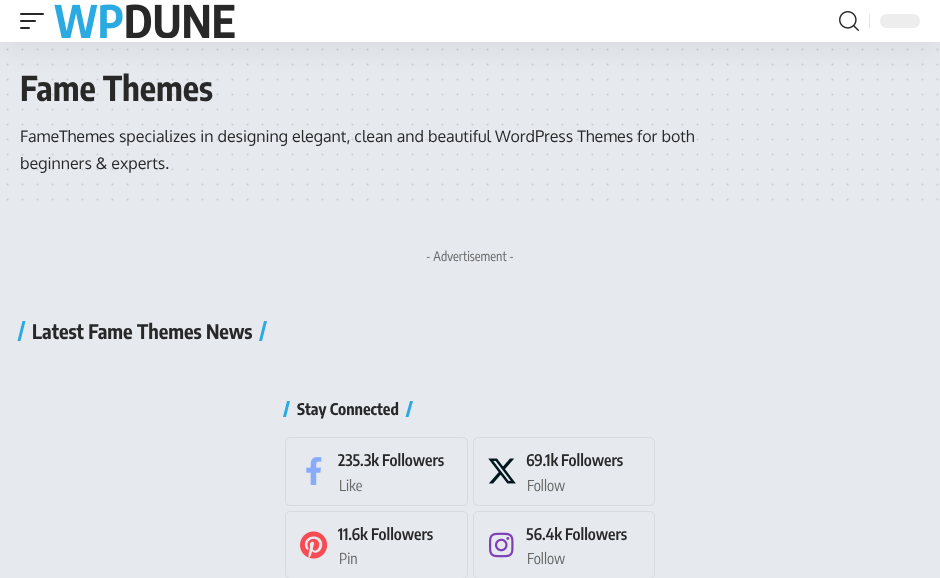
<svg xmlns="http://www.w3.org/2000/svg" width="940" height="578">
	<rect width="100%" height="100%" fill="#E6E9EE" />
	<path d="M7.5 49.5H937.7" fill="none" stroke="#CACCD0" stroke-width="2" stroke-linecap="round" stroke-dasharray="0 15" />
	<path d="M7.5 64.5H937.7" fill="none" stroke="#CACCD0" stroke-width="2" stroke-linecap="round" stroke-dasharray="0 15" />
	<path d="M7.5 79.5H937.7" fill="none" stroke="#CACCD0" stroke-width="2" stroke-linecap="round" stroke-dasharray="0 15" />
	<rect x="0" y="4" width="940" height="42" fill="#000000" fill-opacity="0.07" filter="blur(15px)" />
	<rect x="0" y="0" width="940" height="42" fill="#FFFFFF" />
	<rect x="20" y="13" width="24" height="2" rx="1" fill="#282828" />
	<rect x="20" y="20" width="16" height="2" rx="1" fill="#282828" />
	<rect x="20" y="27" width="10" height="2" rx="1" fill="#282828" />
	<image x="54" y="4" width="181" height="34" href="assets/img1.png" />
	<image x="839" y="11" width="20" height="20" href="assets/img2.png" />
	<rect x="869" y="14" width="1" height="14" fill="#E4E4E4" />
	<rect x="880" y="14" width="40" height="14" rx="7" fill="#EDEDED" />
	<path d="M7.5 94.5H937.7" fill="none" stroke="#CACCD0" stroke-width="2" stroke-linecap="round" stroke-dasharray="0 15" />
	<path d="M7.5 109.5H937.7" fill="none" stroke="#CACCD0" stroke-width="2" stroke-linecap="round" stroke-dasharray="0 15" />
	<path d="M7.5 124.5H937.7" fill="none" stroke="#CACCD0" stroke-width="2" stroke-linecap="round" stroke-dasharray="0 15" />
	<path d="M7.5 139.5H937.7" fill="none" stroke="#CACCD0" stroke-width="2" stroke-linecap="round" stroke-dasharray="0 15" />
	<path d="M7.5 154.5H937.7" fill="none" stroke="#CACCD0" stroke-width="2" stroke-linecap="round" stroke-dasharray="0 15" />
	<path d="M7.5 169.5H937.7" fill="none" stroke="#CACCD0" stroke-width="2" stroke-linecap="round" stroke-dasharray="0 15" />
	<path d="M7.5 184.5H937.7" fill="none" stroke="#CACCD0" stroke-width="2" stroke-linecap="round" stroke-dasharray="0 15" />
	<path d="M7.5 199.5H937.7" fill="none" stroke="#CACCD0" stroke-width="2" stroke-linecap="round" stroke-dasharray="0 15" />
	<text x="20" y="101" font-family="Encode Sans Condensed" font-size="34" font-weight="700" fill="#282828">Fame Themes</text>
	<g font-family="Oxygen" font-size="16" fill="#282828">
		<text x="20" y="142">FameThemes specializes in designing elegant, clean and beautiful WordPress Themes for both</text>
		<text x="20" y="169">beginners &amp; experts.</text>
	</g>
	<text x="426" y="261" font-family="Encode Sans Condensed" font-size="13" fill="#666666">- Advertisement -</text>
	<path d="M264 321H267L262 341H259Z" fill="#2BAAE1" />
	<path d="M22.5 321H25.5L20.5 341H17.5Z" fill="#2BAAE1" />
	<text x="32" y="339" font-family="Encode Sans Condensed" font-size="20" font-weight="700" fill="#282828">Latest Fame Themes News</text>
	<path d="M410 401H413L408.5 417H405.5Z" fill="#2BAAE1" />
	<path d="M287 401H290L286 417H283Z" fill="#2BAAE1" />
	<text x="297" y="415" font-family="Encode Sans Condensed" font-size="16" font-weight="700" fill="#282828">Stay Connected</text>
	<rect x="285.5" y="437.5" width="182" height="68" rx="4.5" fill="none" stroke="#D8DADF" />
	<image x="306" y="457" width="16" height="28" href="assets/img3.png" />
	<g font-family="Encode Sans Condensed" font-size="16" font-weight="600" fill="#282828">
		<text x="338" y="466">235.3k</text>
		<text x="382" y="466">Followers</text>
	</g>
	<text x="339" y="491" font-family="Encode Sans Condensed" font-size="15" fill="#666666">Like</text>
	<rect x="473.5" y="437.5" width="181" height="68" rx="4.5" fill="none" stroke="#D8DADF" />
	<image x="488" y="458" width="28" height="26" href="assets/img4.png" />
	<g font-family="Encode Sans Condensed" font-size="16" font-weight="600" fill="#282828">
		<text x="526" y="466">69.1k</text>
		<text x="561" y="466">Followers</text>
	</g>
	<text x="527" y="491" font-family="Encode Sans Condensed" font-size="15" fill="#666666">Follow</text>
	<rect x="285.5" y="511.5" width="182" height="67" rx="4.5" fill="none" stroke="#D8DADF" />
	<image x="300" y="531" width="28" height="28" href="assets/img5.png" />
	<g font-family="Encode Sans Condensed" font-size="16" font-weight="600" fill="#282828">
		<text x="338" y="540">11.6k</text>
		<text x="371" y="540">Followers</text>
	</g>
	<text x="339" y="564" font-family="Encode Sans Condensed" font-size="15" fill="#666666">Pin</text>
	<rect x="473.5" y="511.5" width="181" height="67" rx="4.5" fill="none" stroke="#D8DADF" />
	<image x="489" y="532" width="25" height="26" href="assets/img6.png" />
	<g font-family="Encode Sans Condensed" font-size="16" font-weight="600" fill="#282828">
		<text x="526" y="540">56.4k</text>
		<text x="565" y="540">Followers</text>
	</g>
	<text x="527" y="564" font-family="Encode Sans Condensed" font-size="15" fill="#666666">Follow</text>
</svg>
